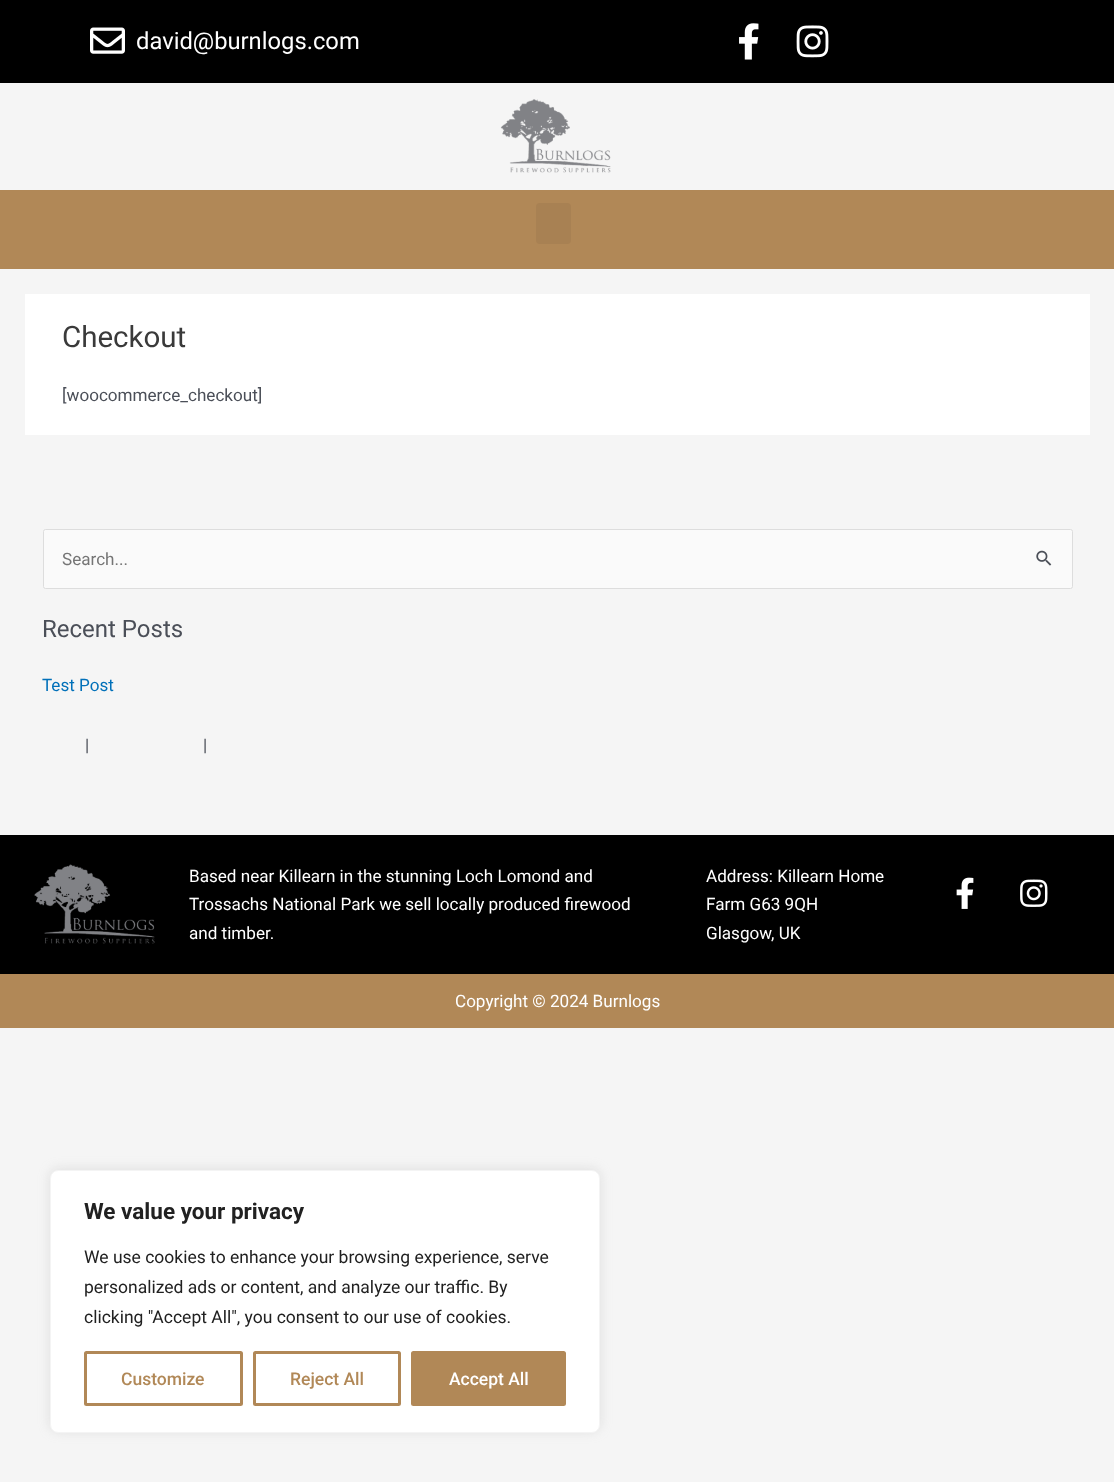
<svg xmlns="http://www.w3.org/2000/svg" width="1114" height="1482">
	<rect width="100%" height="100%" fill="#F5F5F5" />
	<rect x="0" y="0" width="1114" height="83" fill="#000000" />
	<image x="90" y="27" width="35" height="27" href="assets/img1.png" />
	<text x="136" y="49" font-family="Roboto" font-size="23.75" fill="#FFFFFF">david@burnlogs.com</text>
	<image x="739" y="23" width="20" height="37" href="assets/img2.png" />
	<image x="796" y="25" width="33" height="33" href="assets/img3.png" />
	<image x="500" y="99" width="111" height="74" href="assets/img4.png" />
	<rect x="0" y="190" width="1114" height="79" fill="#B18857" />
	<rect x="536" y="203" width="35" height="41" rx="4" fill="#A88153" />
	<rect x="25" y="294" width="1065" height="141" fill="#FFFFFF" />
	<text x="62" y="347" font-family="Roboto" font-size="29.5" fill="#3A3A3A">Checkout</text>
	<text x="62" y="401" font-family="Roboto" font-size="17.1" fill="#4B4F58">[woocommerce_checkout]</text>
	<rect x="43.5" y="529.5" width="1029" height="59" rx="2" fill="#FAFAFA" stroke="#DDDDDD" />
	<text x="62" y="565" font-family="Roboto" font-size="17.1" fill="#757575">Search...</text>
	<image x="1036" y="550" width="16" height="16" href="assets/img5.png" />
	<text x="42" y="637" font-family="Roboto" font-size="24" fill="#4B4F58">Recent Posts</text>
	<text x="42" y="691" font-family="Roboto" font-size="17.1" fill="#0170B9">Test Post</text>
	<g font-family="Roboto" font-size="17.1" fill="#4B4F58">
		<text x="85" y="751">|</text>
		<text x="203" y="751">|</text>
	</g>
	<rect x="0" y="835" width="1114" height="139" fill="#000000" />
	<image x="34" y="864" width="121" height="80" href="assets/img6.png" />
	<g font-family="Roboto" font-size="17.1" fill="#FFFFFF">
		<text x="189" y="882">Based near Killearn in the stunning Loch Lomond and</text>
		<text x="189" y="910">Trossachs National Park we sell locally produced firewood</text>
		<text x="189" y="939">and timber.</text>
		<text x="706" y="882">Address: Killearn Home</text>
		<text x="706" y="910">Farm G63 9QH</text>
		<text x="706" y="939">Glasgow, UK</text>
	</g>
	<image x="956" y="877" width="18" height="32" href="assets/img7.png" />
	<image x="1020" y="879" width="28" height="28" href="assets/img8.png" />
	<rect x="0" y="974" width="1114" height="54" fill="#B18857" />
	<text x="455" y="1007" font-family="Roboto" font-size="17.1" fill="#FFFFFF">Copyright © 2024 Burnlogs</text>
	<rect x="50" y="1169" width="550" height="262" rx="8" fill="#ACABAB" fill-opacity="0.3" filter="blur(6px)" />
	<rect x="50.5" y="1170.5" width="549" height="262" rx="7.5" fill="#FFFFFF" stroke="#F4F4F4" />
	<text x="84" y="1219" font-family="Roboto" font-size="22.5" font-weight="700" fill="#212121">We value your privacy</text>
	<g font-family="Roboto" font-size="17.5" fill="#212121">
		<text x="84" y="1263">We use cookies to enhance your browsing experience, serve</text>
		<text x="84" y="1293">personalized ads or content, and analyze our traffic. By</text>
		<text x="84" y="1323">clicking "Accept All", you consent to our use of cookies.</text>
	</g>
	<rect x="85.5" y="1352.5" width="156" height="52" rx="1" fill="none" stroke="#B18857" stroke-width="3" />
	<text x="121" y="1385" font-family="Roboto" font-size="17.5" font-weight="500" fill="#B18857">Customize</text>
	<rect x="254.5" y="1352.5" width="145" height="52" rx="1" fill="none" stroke="#B18857" stroke-width="3" />
	<text x="290" y="1385" font-family="Roboto" font-size="17.5" font-weight="500" fill="#B18857">Reject All</text>
	<rect x="412.5" y="1352.5" width="152" height="52" rx="1" fill="#B18857" stroke="#B18857" stroke-width="3" />
	<text x="449" y="1385" font-family="Roboto" font-size="17.5" font-weight="500" fill="#FFFFFF">Accept All</text>
</svg>
